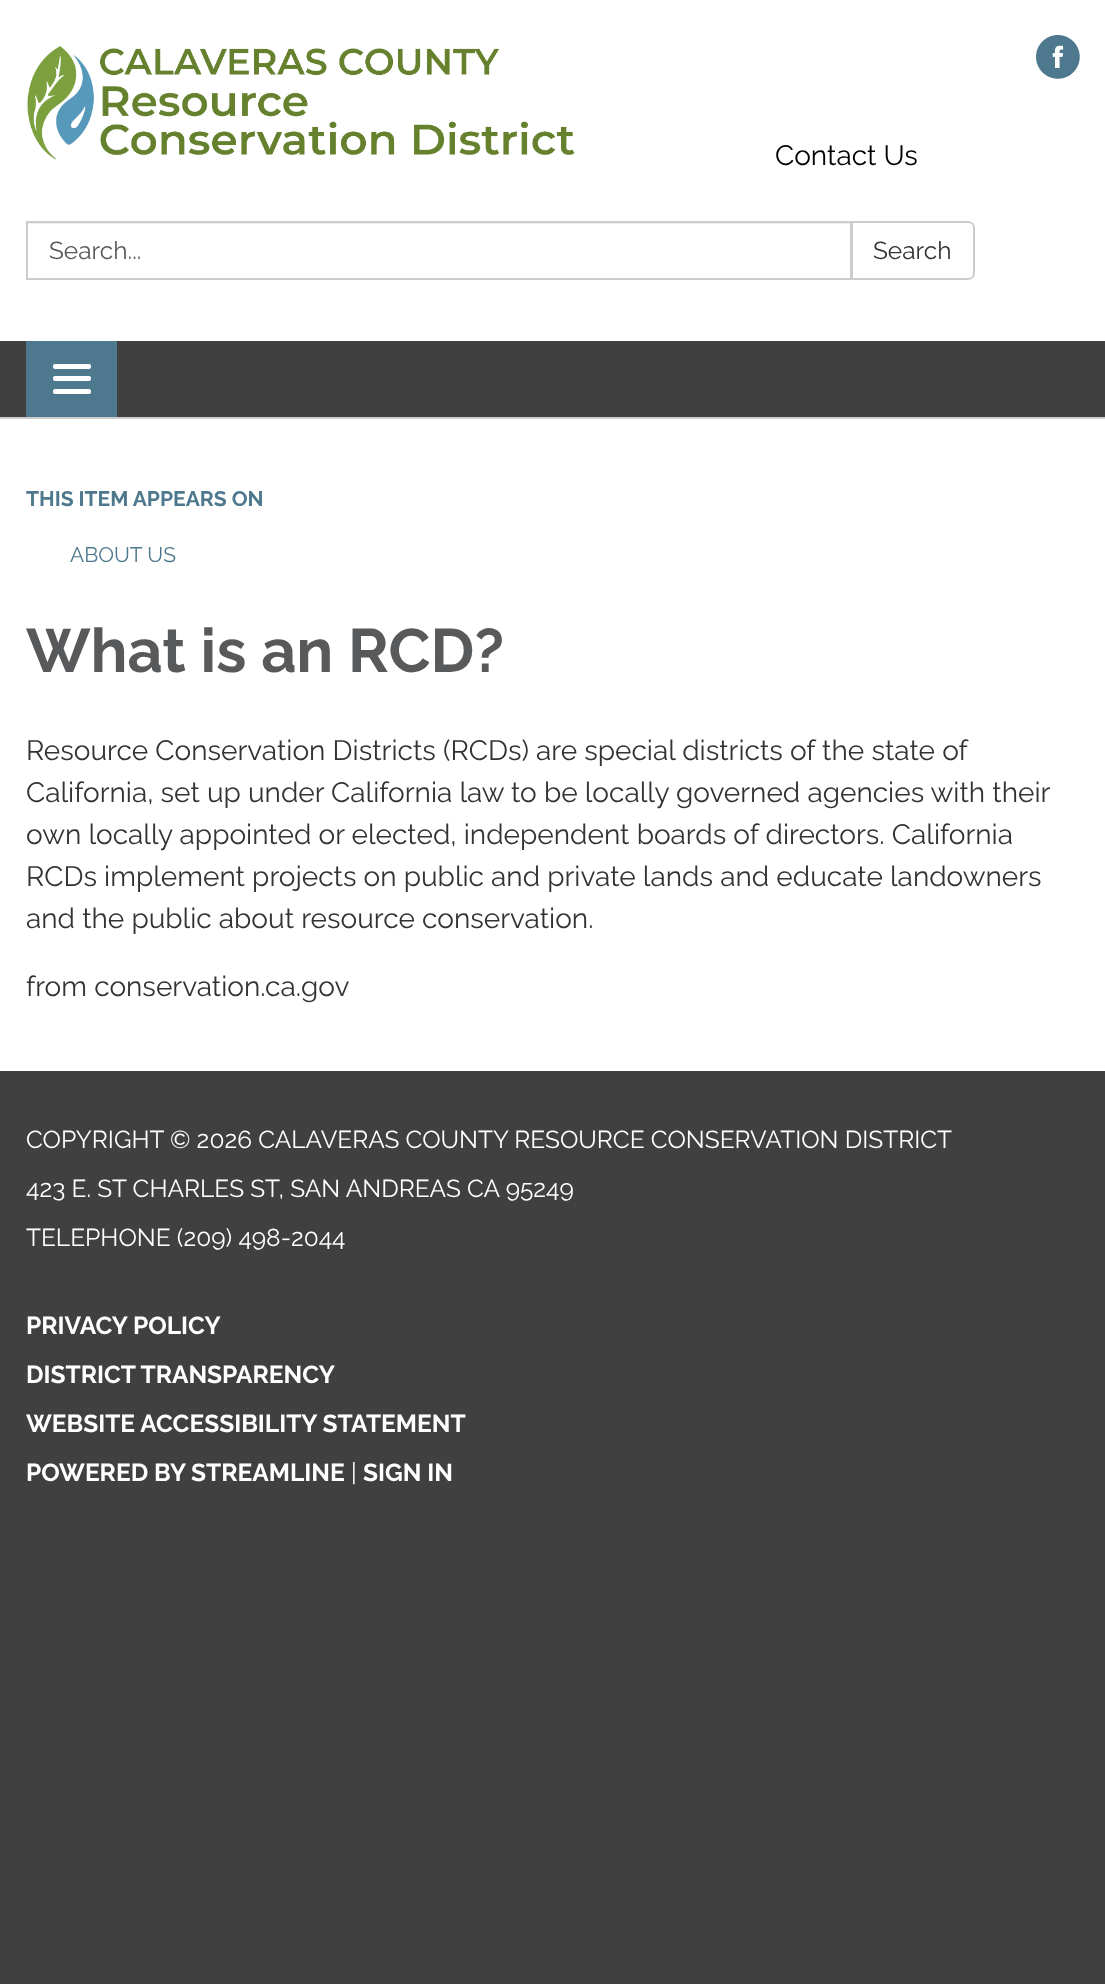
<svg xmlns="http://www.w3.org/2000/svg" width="1105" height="1984">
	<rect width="100%" height="100%" fill="#404041" />
	<rect x="0" y="0" width="1105" height="341" fill="#FFFFFF" />
	<image x="27" y="46" width="548" height="114" href="assets/img1.png" />
	<text x="775" y="165" font-family="Raleway" font-size="28" fill="#000000">Contact Us</text>
	<image x="1036" y="35" width="44" height="44" href="assets/img2.png" />
	<rect x="28" y="223" width="823" height="1" fill="#ECECEC" />
	<rect x="27" y="222" width="824" height="57" fill="none" stroke="#CCCCCC" stroke-width="2" />
	<text x="49" y="259" font-family="Raleway" font-size="24.5" fill="#58595B">Search...</text>
	<path d="M852 222H968C971.5 222 974 224.5 974 228V273C974 276.5 971.5 279 968 279H852Z" fill="#FFFFFF" stroke="#CCCCCC" stroke-width="2" />
	<text x="873" y="259" font-family="Raleway" font-size="24.5" fill="#333333">Search</text>
	<rect x="26" y="341" width="91" height="76" fill="#4E788D" />
	<rect x="53" y="364" width="38" height="5" rx="2" fill="#FFFFFF" />
	<rect x="53" y="376" width="38" height="5" rx="2" fill="#FFFFFF" />
	<rect x="53" y="389" width="38" height="5" rx="2" fill="#FFFFFF" />
	<rect x="0" y="419" width="1105" height="652" fill="#FFFFFF" />
	<rect x="0" y="417" width="1105" height="2" fill="#CCCCCC" />
	<text x="26" y="506" font-family="Raleway" font-size="21" font-weight="700" fill="#4E788D">THIS ITEM APPEARS ON</text>
	<text x="70" y="562" font-family="Raleway" font-size="21" fill="#4E788D">ABOUT US</text>
	<text x="26" y="672" font-family="Raleway" font-size="61.25" font-weight="700" fill="#58595B">What is an RCD?</text>
	<g font-family="Raleway" font-size="28" fill="#333333">
		<text x="26" y="760">Resource Conservation Districts (RCDs) are special districts of the state of</text>
		<text x="26" y="802">California, set up under California law to be locally governed agencies with their</text>
		<text x="26" y="844">own locally appointed or elected, independent boards of directors. California</text>
		<text x="26" y="886">RCDs implement projects on public and private lands and educate landowners</text>
		<text x="26" y="928">and the public about resource conservation.</text>
		<text x="26" y="996">from conservation.ca.gov</text>
	</g>
	<g font-family="Raleway" font-size="24.5" fill="#FFFFFF">
		<text x="26" y="1148">COPYRIGHT © 2026 CALAVERAS COUNTY RESOURCE CONSERVATION DISTRICT</text>
		<text x="26" y="1197">423 E. ST CHARLES ST, SAN ANDREAS CA 95249</text>
		<text x="26" y="1246">TELEPHONE (209) 498-2044</text>
	</g>
	<g font-family="Raleway" font-size="24.5" font-weight="700" fill="#FFFFFF">
		<text x="26" y="1334">PRIVACY POLICY</text>
		<text x="26" y="1383">DISTRICT TRANSPARENCY</text>
		<text x="26" y="1432">WEBSITE ACCESSIBILITY STATEMENT</text>
		<text x="26" y="1481">POWERED BY STREAMLINE</text>
	</g>
	<text x="351" y="1481" font-family="Raleway" font-size="24.5" fill="#FFFFFF">|</text>
	<text x="363" y="1481" font-family="Raleway" font-size="24.5" font-weight="700" fill="#FFFFFF">SIGN IN</text>
</svg>
